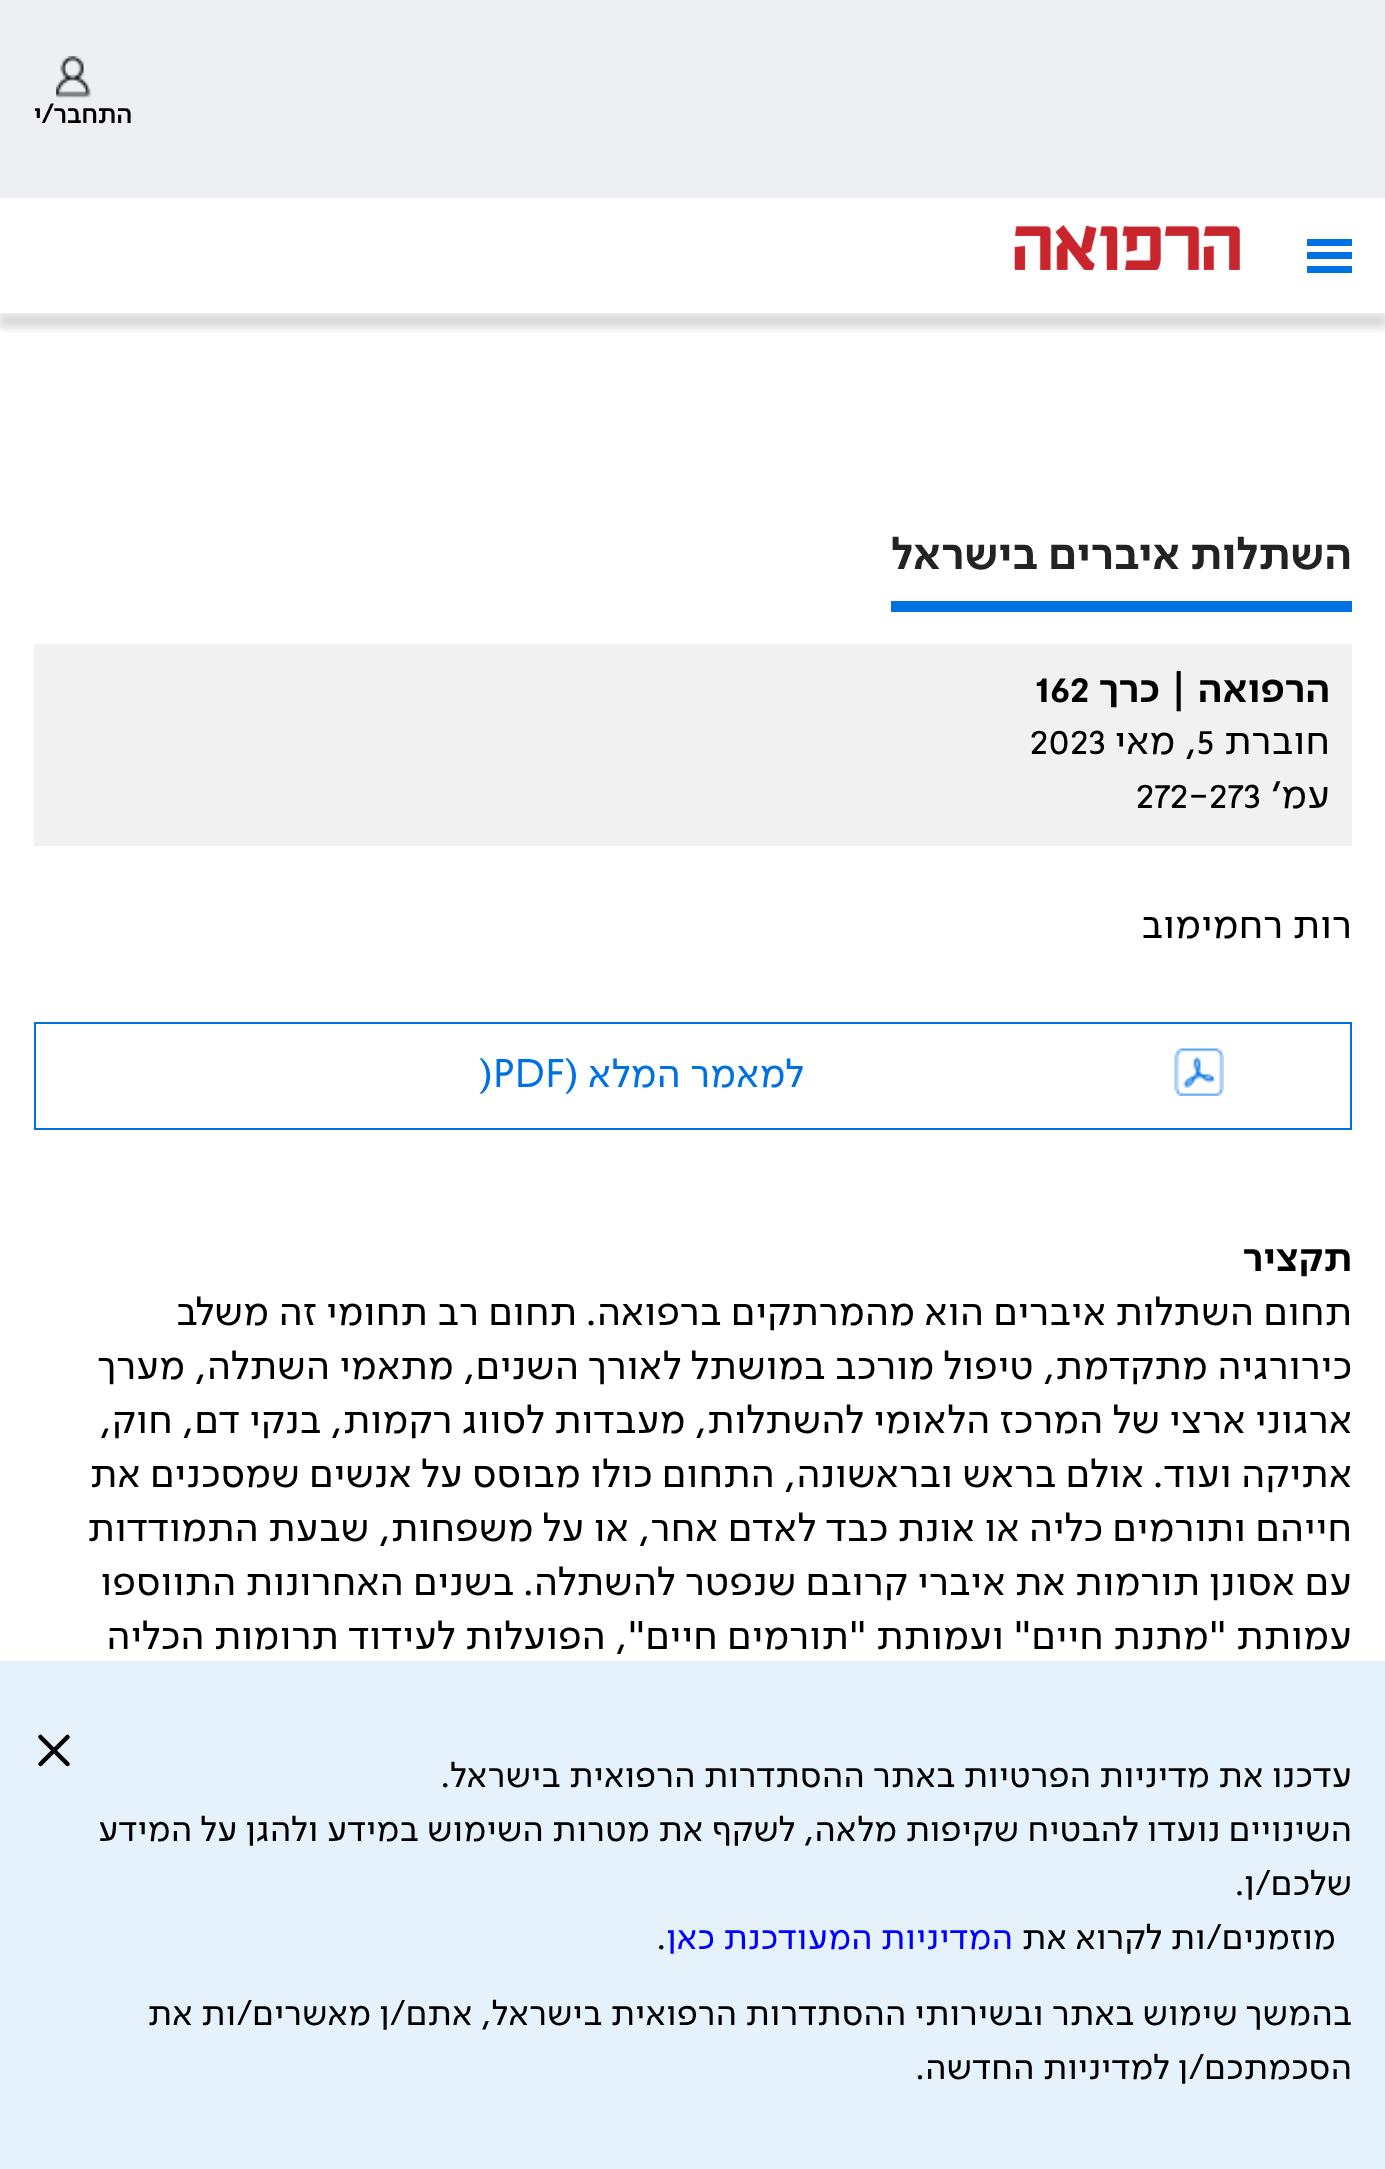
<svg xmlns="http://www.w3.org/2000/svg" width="1385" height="2169">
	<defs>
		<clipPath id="clip1"><rect x="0" y="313" width="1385" height="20" /></clipPath>
	</defs>
	<rect width="100%" height="100%" fill="#FFFFFF" />
	<rect x="0" y="0" width="1385" height="198" fill="#EEEFF3" />
	<image x="56" y="56" width="35" height="42" href="assets/img1.png" />
	<text x="132" y="123" font-family="'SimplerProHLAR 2'" font-size="27" font-weight="700" direction="rtl" fill="#000000">התחבר/י</text>
	<rect x="1307" y="266" width="45" height="7" fill="#0071E2" />
	<rect x="1307" y="239" width="45" height="7" fill="#0071E2" />
	<rect x="1307" y="252" width="45" height="7" fill="#0071E2" />
	<image x="1014" y="225" width="226" height="45" href="assets/img2.png" />
	<g clip-path="url(#clip1)">
		<rect x="-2" y="315" width="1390" height="11" fill="#000000" fill-opacity="0.2" filter="blur(5.5px)" />
	</g>
	<rect x="891" y="601" width="461" height="11" fill="#0071E2" />
	<text x="1352" y="569" font-family="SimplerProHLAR" font-size="45" font-weight="700" direction="rtl" fill="#232323">השתלות איברים בישראל</text>
	<rect x="34" y="644" width="1318" height="202" fill="#F1F1F1" />
	<text x="1330" y="702" font-family="SimplerProHLAR" font-size="40.5" font-weight="700" direction="rtl" fill="#000000">הרפואה | כרך</text>
	<text x="1035" y="702" font-family="SimplerProHLAR" font-size="40.5" font-weight="700" fill="#000000">162</text>
	<text x="1330" y="754" font-family="SimplerProHLAR" font-size="40.5" direction="rtl" fill="#000000">חוברת</text>
	<text x="1197" y="754" font-family="SimplerProHLAR" font-size="40.5" fill="#000000">5</text>
	<text x="1197" y="754" font-family="SimplerProHLAR" font-size="40.5" direction="rtl" fill="#000000">, מאי</text>
	<text x="1030" y="754" font-family="SimplerProHLAR" font-size="40.5" fill="#000000">2023</text>
	<text x="1330" y="808" font-family="SimplerProHLAR" font-size="40.5" direction="rtl" fill="#000000">עמ׳</text>
	<text x="1136" y="808" font-family="SimplerProHLAR" font-size="40.5" fill="#000000">272-273</text>
	<text x="1352" y="938" font-family="SimplerProHLAR" font-size="40.5" direction="rtl" fill="#000000">רות רחמימוב</text>
	<image x="1174" y="1048" width="50" height="48" href="assets/img3.png" />
	<rect x="35" y="1023" width="1316" height="106" fill="none" stroke="#0071E3" stroke-width="2" />
	<text x="804" y="1087" font-family="SimplerProHLAR" font-size="40.5" direction="rtl" fill="#0071E3">למאמר המלא (</text>
	<text x="479" y="1087" font-family="SimplerProHLAR" font-size="40.5" fill="#0071E3">)PDF</text>
	<text x="1352" y="1271" font-family="SimplerProHLAR" font-size="40.5" font-weight="700" direction="rtl" fill="#000000">תקציר</text>
	<g font-family="SimplerProHLAR" font-size="40.5" direction="rtl" fill="#000000">
		<text x="1352" y="1325">תחום השתלות איברים הוא מהמרתקים ברפואה. תחום רב תחומי זה משלב</text>
		<text x="1352" y="1379">כירורגיה מתקדמת, טיפול מורכב במושתל לאורך השנים, מתאמי השתלה, מערך</text>
		<text x="1352" y="1433">ארגוני ארצי של המרכז הלאומי להשתלות, מעבדות לסווג רקמות, בנקי דם, חוק,</text>
		<text x="1352" y="1487">אתיקה ועוד. אולם בראש ובראשונה, התחום כולו מבוסס על אנשים שמסכנים את</text>
		<text x="1352" y="1541">חייהם ותורמים כליה או אונת כבד לאדם אחר, או על משפחות, שבעת התמודדות</text>
		<text x="1352" y="1595">עם אסונן תורמות את איברי קרובם שנפטר להשתלה. בשנים האחרונות התווספו</text>
		<text x="1352" y="1649">עמותת "מתנת חיים" ועמותת "תורמים חיים", הפועלות לעידוד תרומות הכליה</text>
	</g>
	<rect x="0" y="1661" width="1385" height="508" fill="#E5F1FB" />
	<path d="M67.5 1737L40.5 1764M40.5 1737L67.5 1764" fill="none" stroke="#000000" stroke-width="4.5" stroke-linecap="round" stroke-linejoin="round" />
	<g font-family="SimplerProHLAR" font-size="36" direction="rtl" fill="#000000">
		<text x="1352" y="1787">עדכנו את מדיניות הפרטיות באתר ההסתדרות הרפואית בישראל.</text>
		<text x="1352" y="1841">השינויים נועדו להבטיח שקיפות מלאה, לשקף את מטרות השימוש במידע ולהגן על המידע</text>
		<text x="1352" y="1895">שלכם/ן.</text>
		<text x="1336" y="1949">מוזמנים/ות לקרוא את</text>
	</g>
	<text x="1013" y="1949" font-family="SimplerProHLAR" font-size="36" direction="rtl" fill="#0000FF">המדיניות המעודכנת כאן</text>
	<text x="657" y="1949" font-family="SimplerProHLAR" font-size="36" fill="#000000">.</text>
	<g font-family="SimplerProHLAR" font-size="36" direction="rtl" fill="#000000">
		<text x="1352" y="2025">בהמשך שימוש באתר ובשירותי ההסתדרות הרפואית בישראל, אתם/ן מאשרים/ות את</text>
		<text x="1352" y="2079">הסכמתכם/ן למדיניות החדשה.</text>
	</g>
</svg>
